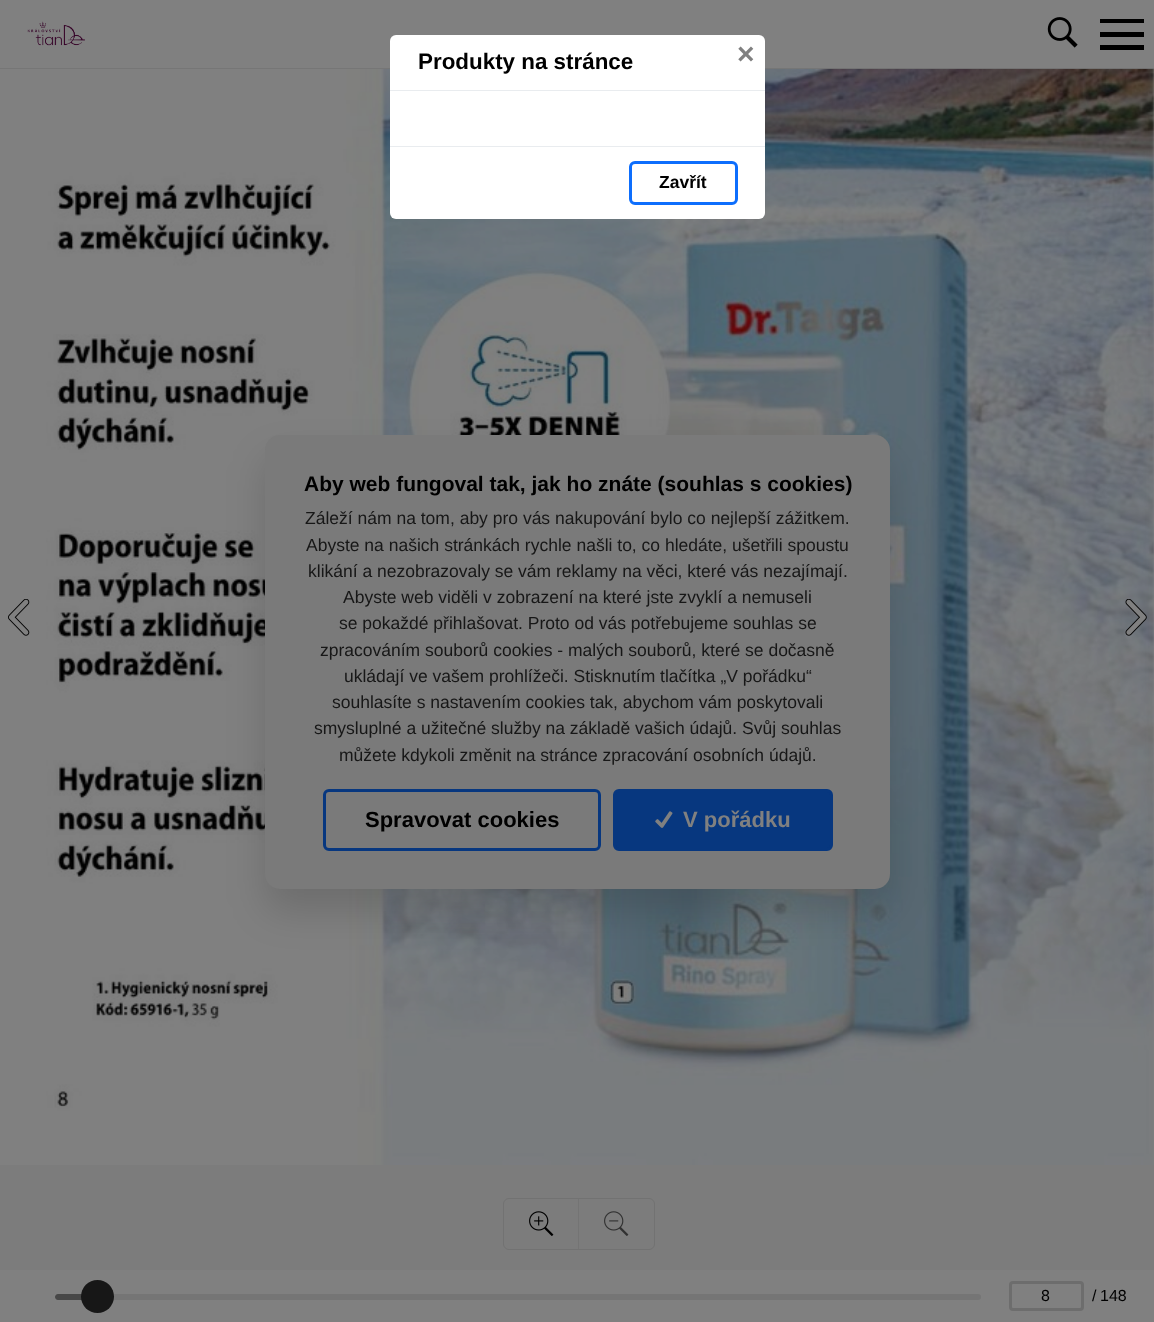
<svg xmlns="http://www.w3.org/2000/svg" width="1154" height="1322">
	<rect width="100%" height="100%" fill="#7C7C7C" />
	<rect x="0" y="0" width="1154" height="68" fill="#808080" />
	<rect x="0" y="68" width="1154" height="1" fill="#767676" />
	<image x="27" y="21" width="58" height="25" href="assets/img1.png" />
	<image x="1047" y="17" width="31" height="31" href="assets/img2.png" />
	<path d="M1100 19V23H1144V19ZM1100 32V37H1144V32ZM1100 45V50H1144V45Z" fill="#000000" />
	<image x="0" y="68" width="1154" height="1097" href="assets/img3.png" />
	<rect x="390" y="35" width="375" height="184" rx="6" fill="#FFFFFF" />
	<rect x="390" y="90" width="375" height="1" fill="#E9ECEF" />
	<text x="418" y="69" font-family="Liberation Sans" font-size="22.4" font-weight="700" fill="#000000">Produkty na stránce</text>
	<text x="737" y="64" font-family="Liberation Sans" font-size="30" font-weight="700" fill="#808080">×</text>
	<rect x="390" y="146" width="375" height="1" fill="#E9ECEF" />
	<rect x="630.5" y="162.5" width="106" height="41" rx="4.5" fill="none" stroke="#0D6EFD" stroke-width="3" />
	<text x="659" y="188" font-family="Liberation Sans" font-size="17.5" font-weight="700" fill="#000000">Zavřít</text>
	<image x="8" y="599" width="22" height="37" href="assets/img4.png" />
	<image x="1125" y="599" width="22" height="37" href="assets/img5.png" />
	<rect x="503.5" y="1198.5" width="151" height="51" rx="5.5" fill="none" stroke="#727272" />
	<image x="529" y="1211" width="25" height="25" href="assets/img6.png" />
	<rect x="578" y="1199" width="1" height="50" fill="#747474" />
	<image x="604" y="1211" width="25" height="25" href="assets/img7.png" />
	<rect x="265" y="458" width="625" height="453" rx="15" fill="#000000" fill-opacity="0.15" filter="blur(19px)" />
	<rect x="265" y="435" width="625" height="454" rx="15" fill="#7A7A7A" />
	<text x="304" y="491" font-family="Liberation Sans" font-size="21" font-weight="700" fill="#000000">Aby web fungoval tak, jak ho znáte (souhlas s cookies)</text>
	<g font-family="Liberation Sans" font-size="17.5" fill="#171717">
		<text x="305" y="524">Záleží nám na tom, aby pro vás nakupování bylo co nejlepší zážitkem.</text>
		<text x="306" y="551">Abyste na našich stránkách rychle našli to, co hledáte, ušetřili spoustu</text>
		<text x="308" y="577">klikání a nezobrazovaly se vám reklamy na věci, které vás nezajímají.</text>
		<text x="343" y="603">Abyste web viděli v zobrazení na které jste zvyklí a nemuseli</text>
		<text x="339" y="629">se pokaždé přihlašovat. Proto od vás potřebujeme souhlas se</text>
		<text x="320" y="656">zpracováním souborů cookies - malých souborů, které se dočasně</text>
		<text x="344" y="682">ukládají ve vašem prohlížeči. Stisknutím tlačítka „V pořádku“</text>
		<text x="332" y="708">souhlasíte s nastavením cookies tak, abychom vám poskytovali</text>
		<text x="314" y="734">smysluplné a užitečné služby na základě vašich údajů. Svůj souhlas</text>
		<text x="339" y="761">můžete kdykoli změnit na stránce zpracování osobních údajů.</text>
	</g>
	<rect x="324.5" y="790.5" width="275" height="59" rx="4.5" fill="none" stroke="#07377F" stroke-width="3" />
	<text x="365" y="827" font-family="Liberation Sans" font-size="22" font-weight="700" fill="#000000">Spravovat cookies</text>
	<rect x="614.5" y="790.5" width="217" height="59" rx="4.5" fill="#07377F" stroke="#07377F" stroke-width="3" />
	<image x="655" y="811" width="18" height="17" href="assets/img8.png" />
	<text x="683" y="827" font-family="Liberation Sans" font-size="22" font-weight="700" fill="#808080">V pořádku</text>
	<rect x="0" y="1270" width="1154" height="52" fill="#808080" />
	<rect x="55" y="1294" width="926" height="6" rx="3" fill="#757575" />
	<path d="M58 1294H99V1300H58C56.5 1300 55 1298.5 55 1297C55 1295.5 56.5 1294 58 1294Z" fill="#474747" />
	<circle cx="97.5" cy="1296.5" r="16.5" fill="#171717" />
	<rect x="1010.5" y="1282.5" width="72" height="27" rx="2.5" fill="none" stroke="#6D6D6D" stroke-width="3" />
	<g font-family="Liberation Sans" font-size="16" fill="#000000">
		<text x="1041" y="1301">8</text>
		<text x="1092" y="1301">/</text>
		<text x="1100" y="1301">148</text>
	</g>
</svg>
